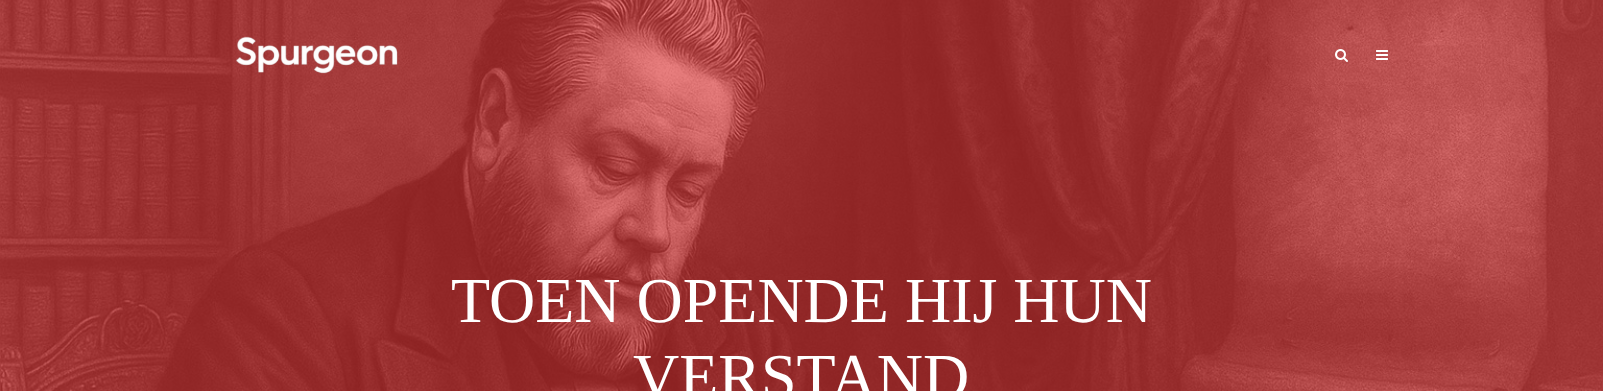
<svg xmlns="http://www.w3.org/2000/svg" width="1603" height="391">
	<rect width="100%" height="100%" fill="#FFFFFF" />
	<image x="0" y="0" width="1603" height="391" href="assets/img4.png" />
	<image x="236" y="36" width="162" height="38" href="assets/img1.png" />
	<image x="1335" y="49" width="13" height="13" href="assets/img2.png" />
	<image x="1376" y="50" width="12" height="10" href="assets/img3.png" />
	<g font-family="Liberation Serif" font-size="64" fill="#FFFFFF">
		<text x="451" y="322">TOEN OPENDE HIJ HUN</text>
		<text x="633" y="398">VERSTAND</text>
	</g>
</svg>
